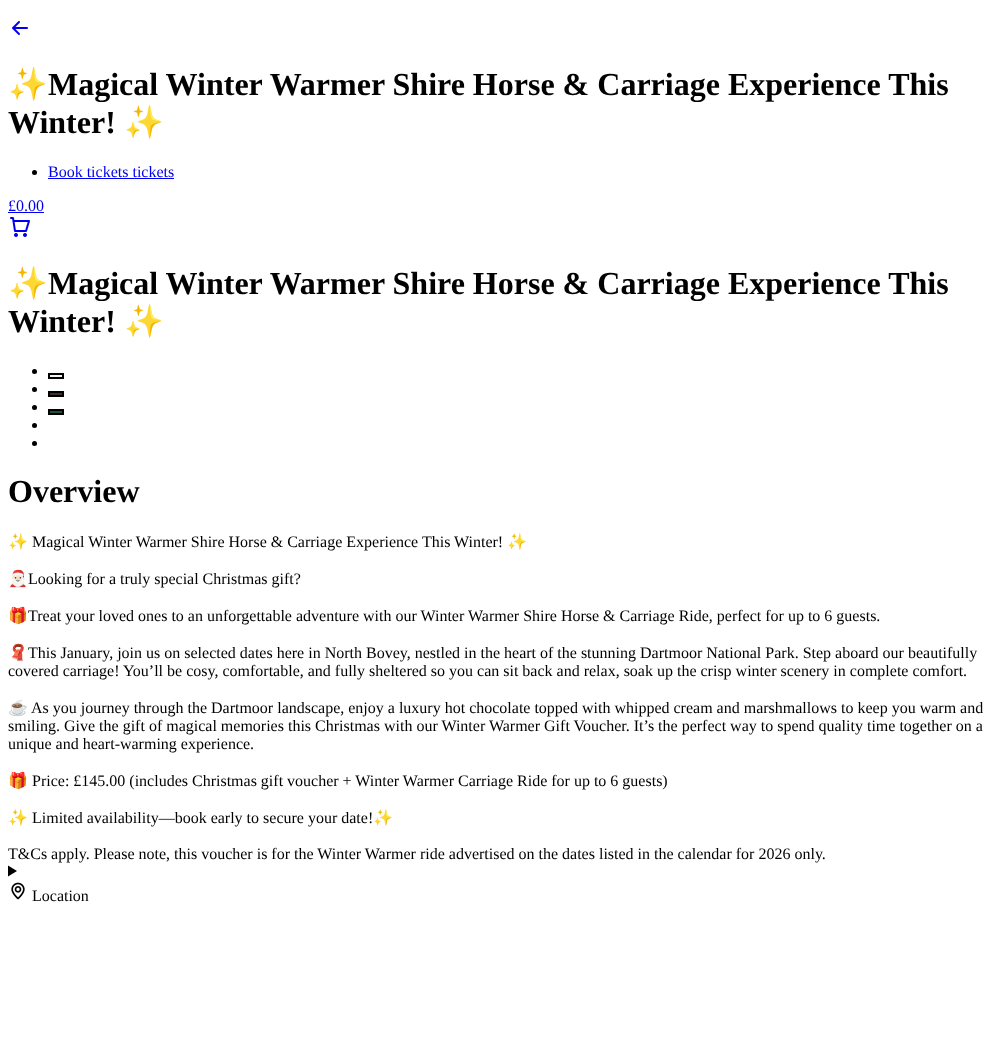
<svg xmlns="http://www.w3.org/2000/svg" width="994" height="1045">
	<rect width="100%" height="100%" fill="#FFFFFF" />
	<image x="12" y="21" width="16" height="14" href="assets/img1.png" />
	<text x="8" y="95" font-family="Noto Color Emoji" font-size="32" font-weight="700" fill="#000000">✨</text>
	<g font-family="Liberation Serif" font-size="32" font-weight="700" fill="#000000">
		<text x="48" y="95">Magical Winter Warmer Shire Horse &amp; Carriage Experience This</text>
		<text x="8" y="133">Winter!</text>
	</g>
	<text x="124" y="133" font-family="Noto Color Emoji" font-size="32" font-weight="700" fill="#000000">✨</text>
	<circle cx="34.5" cy="172.5" r="2.5" fill="#000000" />
	<text x="48" y="177" font-family="Liberation Serif" font-size="16" fill="#0000EE">Book tickets tickets</text>
	<rect x="48" y="178" width="126" height="1" fill="#0000EE" />
	<text x="8" y="211" font-family="Liberation Serif" font-size="16" fill="#0000EE">£0.00</text>
	<rect x="8" y="212" width="36" height="1" fill="#0000EE" />
	<image x="10" y="217" width="20" height="20" href="assets/img2.png" />
	<text x="8" y="294" font-family="Noto Color Emoji" font-size="32" font-weight="700" fill="#000000">✨</text>
	<g font-family="Liberation Serif" font-size="32" font-weight="700" fill="#000000">
		<text x="48" y="294">Magical Winter Warmer Shire Horse &amp; Carriage Experience This</text>
		<text x="8" y="332">Winter!</text>
	</g>
	<text x="124" y="332" font-family="Noto Color Emoji" font-size="32" font-weight="700" fill="#000000">✨</text>
	<circle cx="34.5" cy="371.5" r="2.5" fill="#000000" />
	<image x="50" y="375" width="12" height="2" href="assets/img3.png" />
	<rect x="49" y="374" width="14" height="4" fill="none" stroke="#000000" stroke-width="2" />
	<circle cx="34.5" cy="389.5" r="2.5" fill="#000000" />
	<image x="50" y="393" width="12" height="2" href="assets/img4.png" />
	<rect x="49" y="392" width="14" height="4" fill="none" stroke="#000000" stroke-width="2" />
	<circle cx="34.5" cy="407.5" r="2.5" fill="#000000" />
	<image x="50" y="411" width="12" height="2" href="assets/img5.png" />
	<rect x="49" y="410" width="14" height="4" fill="none" stroke="#000000" stroke-width="2" />
	<circle cx="34.5" cy="425.5" r="2.5" fill="#000000" />
	<circle cx="34.5" cy="443.5" r="2.5" fill="#000000" />
	<text x="8" y="502" font-family="Liberation Serif" font-size="32" font-weight="700" fill="#000000">Overview</text>
	<text x="8" y="547" font-family="Noto Color Emoji" font-size="16" fill="#000000">✨</text>
	<text x="32" y="547" font-family="Liberation Serif" font-size="16" fill="#000000">Magical Winter Warmer Shire Horse &amp; Carriage Experience This Winter!</text>
	<g font-family="Noto Color Emoji" font-size="16" fill="#000000">
		<text x="507" y="547">✨</text>
		<text x="8" y="584">🎅🏻</text>
	</g>
	<text x="28" y="584" font-family="Liberation Serif" font-size="16" fill="#000000">Looking for a truly special Christmas gift?</text>
	<text x="8" y="621" font-family="Noto Color Emoji" font-size="16" fill="#000000">🎁</text>
	<text x="28" y="621" font-family="Liberation Serif" font-size="16" fill="#000000">Treat your loved ones to an unforgettable adventure with our Winter Warmer Shire Horse &amp; Carriage Ride, perfect for up to 6 guests.</text>
	<text x="8" y="658" font-family="Noto Color Emoji" font-size="16" fill="#000000">🧣</text>
	<g font-family="Liberation Serif" font-size="16" fill="#000000">
		<text x="28" y="658">This January, join us on selected dates here in North Bovey, nestled in the heart of the stunning Dartmoor National Park. Step aboard our beautifully</text>
		<text x="8" y="676">covered carriage! You’ll be cosy, comfortable, and fully sheltered so you can sit back and relax, soak up the crisp winter scenery in complete comfort.</text>
	</g>
	<text x="8" y="713" font-family="Noto Color Emoji" font-size="16" fill="#000000">☕️</text>
	<g font-family="Liberation Serif" font-size="16" fill="#000000">
		<text x="31" y="713">As you journey through the Dartmoor landscape, enjoy a luxury hot chocolate topped with whipped cream and marshmallows to keep you warm and</text>
		<text x="8" y="731">smiling. Give the gift of magical memories this Christmas with our Winter Warmer Gift Voucher. It’s the perfect way to spend quality time together on a</text>
		<text x="8" y="749">unique and heart-warming experience.</text>
	</g>
	<text x="8" y="786" font-family="Noto Color Emoji" font-size="16" fill="#000000">🎁</text>
	<text x="32" y="786" font-family="Liberation Serif" font-size="16" fill="#000000">Price: £145.00 (includes Christmas gift voucher + Winter Warmer Carriage Ride for up to 6 guests)</text>
	<text x="8" y="823" font-family="Noto Color Emoji" font-size="16" fill="#000000">✨</text>
	<text x="32" y="823" font-family="Liberation Serif" font-size="16" fill="#000000">Limited availability—book early to secure your date!</text>
	<text x="373" y="823" font-family="Noto Color Emoji" font-size="16" fill="#000000">✨</text>
	<text x="8" y="859" font-family="Liberation Serif" font-size="16" fill="#000000">T&amp;Cs apply. Please note, this voucher is for the Winter Warmer ride advertised on the dates listed in the calendar for 2026 only.</text>
	<path d="M8 865.5L17 871L8 876.5Z" fill="#000000" />
	<image x="11" y="882" width="14" height="18" href="assets/img6.png" />
	<text x="32" y="901" font-family="Liberation Serif" font-size="16" fill="#000000">Location</text>
</svg>
